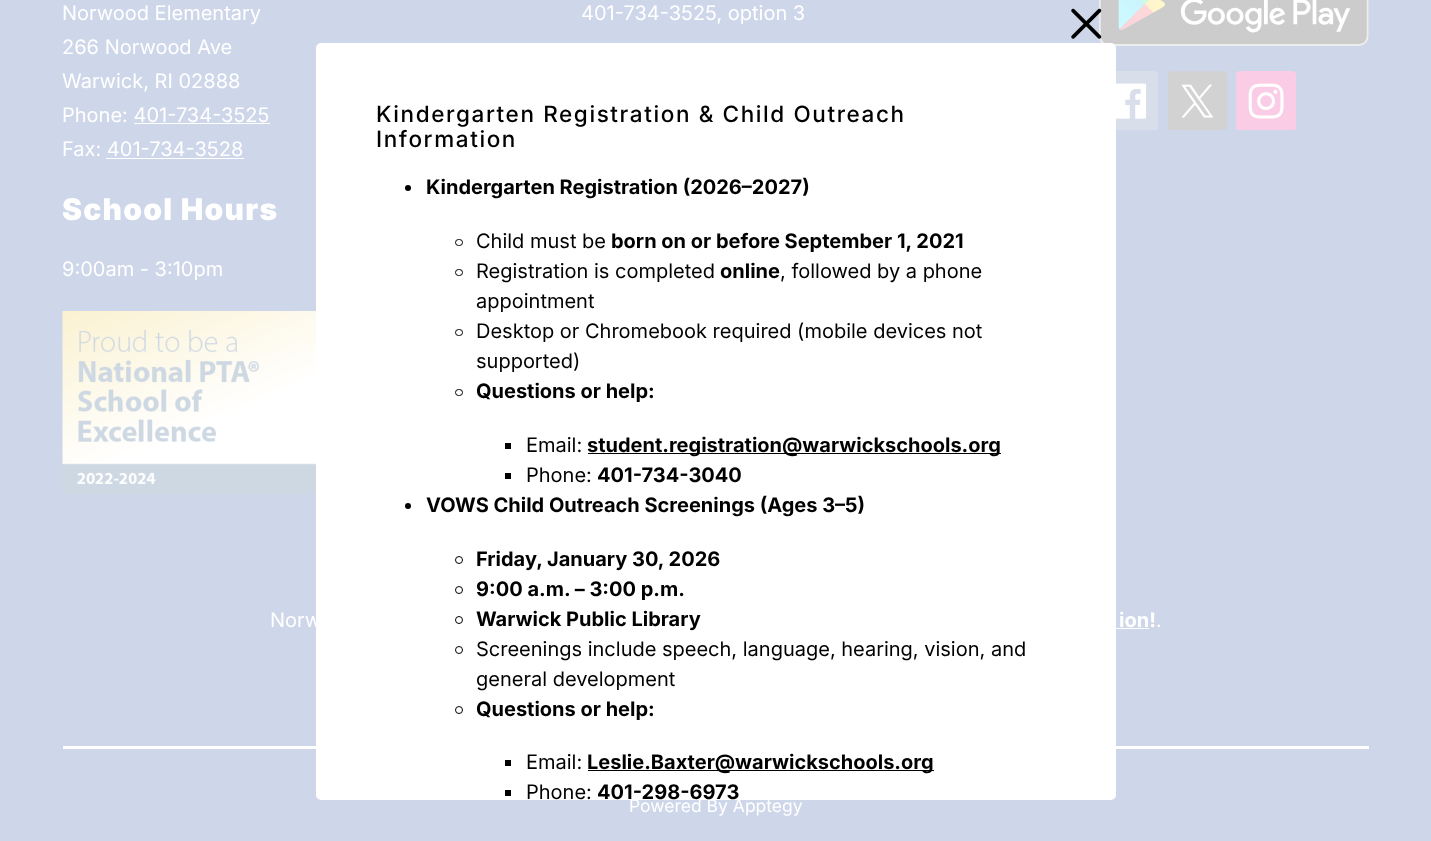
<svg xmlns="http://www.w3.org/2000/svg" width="1431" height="841">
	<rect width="100%" height="100%" fill="#CED6E9" />
	<g font-family="Inter" font-size="20" fill="#FFFFFF">
		<text x="62" y="20">Norwood Elementary</text>
		<text x="62" y="54">266 Norwood Ave</text>
		<text x="62" y="88">Warwick, RI 02888</text>
		<text x="62" y="122">Phone: 401-734-3525</text>
	</g>
	<rect x="134" y="123" width="136" height="1" fill="#FFFFFF" />
	<text x="62" y="156" font-family="Inter" font-size="20" fill="#FFFFFF">Fax: 401-734-3528</text>
	<rect x="106" y="158" width="138" height="1" fill="#FFFFFF" />
	<text x="62" y="220" font-family="Inter" font-size="30" font-weight="900" letter-spacing="1.25" fill="#FFFFFF">School Hours</text>
	<text x="62" y="276" font-family="Inter" font-size="20" fill="#FFFFFF">9:00am - 3:10pm</text>
	<image x="62" y="311" width="254" height="183" href="assets/img1.png" />
	<text x="581" y="20" font-family="Inter" font-size="20" fill="#FFFFFF">401-734-3525, option 3</text>
	<image x="1099" y="0" width="270" height="46" href="assets/img2.png" />
	<image x="1116" y="71" width="42" height="59" href="assets/img3.png" />
	<image x="1168" y="71" width="60" height="59" href="assets/img4.png" />
	<image x="1236" y="71" width="60" height="59" href="assets/img5.png" />
	<text x="270" y="627" font-family="Inter" font-size="20" fill="#FFFFFF">Norw</text>
	<text x="1119" y="627" font-family="Inter" font-size="20" font-weight="700" fill="#FFFFFF">ion!</text>
	<rect x="1116" y="628" width="33" height="1" fill="#FFFFFF" />
	<text x="1156" y="627" font-family="Inter" font-size="20" fill="#FFFFFF">.</text>
	<rect x="63" y="746" width="1306" height="3" fill="#FFFFFF" />
	<text x="629" y="812" font-family="Inter" font-size="17.5" fill="#FFFFFF">Powered By Apptegy</text>
	<image x="1071" y="8" width="31" height="31" href="assets/img6.png" />
	<rect x="316" y="43" width="800" height="757" rx="5" fill="#FFFFFF" />
	<g font-family="Inter" font-size="22.5" font-weight="500" letter-spacing="1.6" fill="#000000">
		<text x="376" y="122">Kindergarten Registration &amp; Child Outreach</text>
		<text x="376" y="147">Information</text>
	</g>
	<circle cx="408" cy="188" r="3" fill="#000000" />
	<text x="426" y="194" font-family="Inter" font-size="20" font-weight="700" fill="#000000">Kindergarten Registration (2026–2027)</text>
	<rect x="455.5" y="239.5" width="7" height="6" rx="3" fill="none" stroke="#000000" />
	<text x="476" y="248" font-family="Inter" font-size="20" fill="#000000">Child must be</text>
	<text x="611" y="248" font-family="Inter" font-size="20" font-weight="700" fill="#000000">born on or before September 1, 2021</text>
	<rect x="455.5" y="269.5" width="7" height="6" rx="3" fill="none" stroke="#000000" />
	<text x="476" y="278" font-family="Inter" font-size="20" fill="#000000">Registration is completed</text>
	<text x="720" y="278" font-family="Inter" font-size="20" font-weight="700" fill="#000000">online</text>
	<g font-family="Inter" font-size="20" fill="#000000">
		<text x="780" y="278">, followed by a phone</text>
		<text x="476" y="308">appointment</text>
	</g>
	<rect x="455.5" y="329.5" width="7" height="6" rx="3" fill="none" stroke="#000000" />
	<g font-family="Inter" font-size="20" fill="#000000">
		<text x="476" y="338">Desktop or Chromebook required (mobile devices not</text>
		<text x="476" y="368">supported)</text>
	</g>
	<rect x="455.5" y="389.5" width="7" height="6" rx="3" fill="none" stroke="#000000" />
	<text x="476" y="398" font-family="Inter" font-size="20" font-weight="700" fill="#000000">Questions or help:</text>
	<rect x="505" y="443" width="6" height="6" fill="#000000" />
	<text x="526" y="452" font-family="Inter" font-size="20" fill="#000000">Email:</text>
	<rect x="588" y="453" width="413" height="1" fill="#000000" />
	<text x="587" y="452" font-family="Inter" font-size="20" font-weight="700" fill="#000000">student.registration@warwickschools.org</text>
	<rect x="505" y="473" width="6" height="6" fill="#000000" />
	<text x="526" y="482" font-family="Inter" font-size="20" fill="#000000">Phone:</text>
	<text x="597" y="482" font-family="Inter" font-size="20" font-weight="700" fill="#000000">401-734-3040</text>
	<circle cx="408" cy="506" r="3" fill="#000000" />
	<text x="426" y="512" font-family="Inter" font-size="20" font-weight="700" fill="#000000">VOWS Child Outreach Screenings (Ages 3–5)</text>
	<circle cx="459" cy="560" r="3.5" fill="none" stroke="#000000" />
	<text x="476" y="566" font-family="Inter" font-size="20" font-weight="700" fill="#000000">Friday, January 30, 2026</text>
	<circle cx="459" cy="590" r="3.5" fill="none" stroke="#000000" />
	<text x="476" y="596" font-family="Inter" font-size="20" font-weight="700" fill="#000000">9:00 a.m. – 3:00 p.m.</text>
	<circle cx="459" cy="620" r="3.5" fill="none" stroke="#000000" />
	<text x="476" y="626" font-family="Inter" font-size="20" font-weight="700" fill="#000000">Warwick Public Library</text>
	<circle cx="459" cy="650" r="3.5" fill="none" stroke="#000000" />
	<g font-family="Inter" font-size="20" fill="#000000">
		<text x="476" y="656">Screenings include speech, language, hearing, vision, and</text>
		<text x="476" y="686">general development</text>
	</g>
	<circle cx="459" cy="710" r="3.5" fill="none" stroke="#000000" />
	<text x="476" y="716" font-family="Inter" font-size="20" font-weight="700" fill="#000000">Questions or help:</text>
	<rect x="505" y="760" width="6" height="6" fill="#000000" />
	<text x="526" y="769" font-family="Inter" font-size="20" fill="#000000">Email:</text>
	<rect x="588" y="770" width="346" height="1" fill="#000000" />
	<text x="587" y="769" font-family="Inter" font-size="20" font-weight="700" fill="#000000">Leslie.Baxter@warwickschools.org</text>
	<rect x="505" y="790" width="6" height="6" fill="#000000" />
	<text x="526" y="799" font-family="Inter" font-size="20" fill="#000000">Phone:</text>
	<text x="597" y="799" font-family="Inter" font-size="20" font-weight="700" fill="#000000">401-298-6973</text>
</svg>
